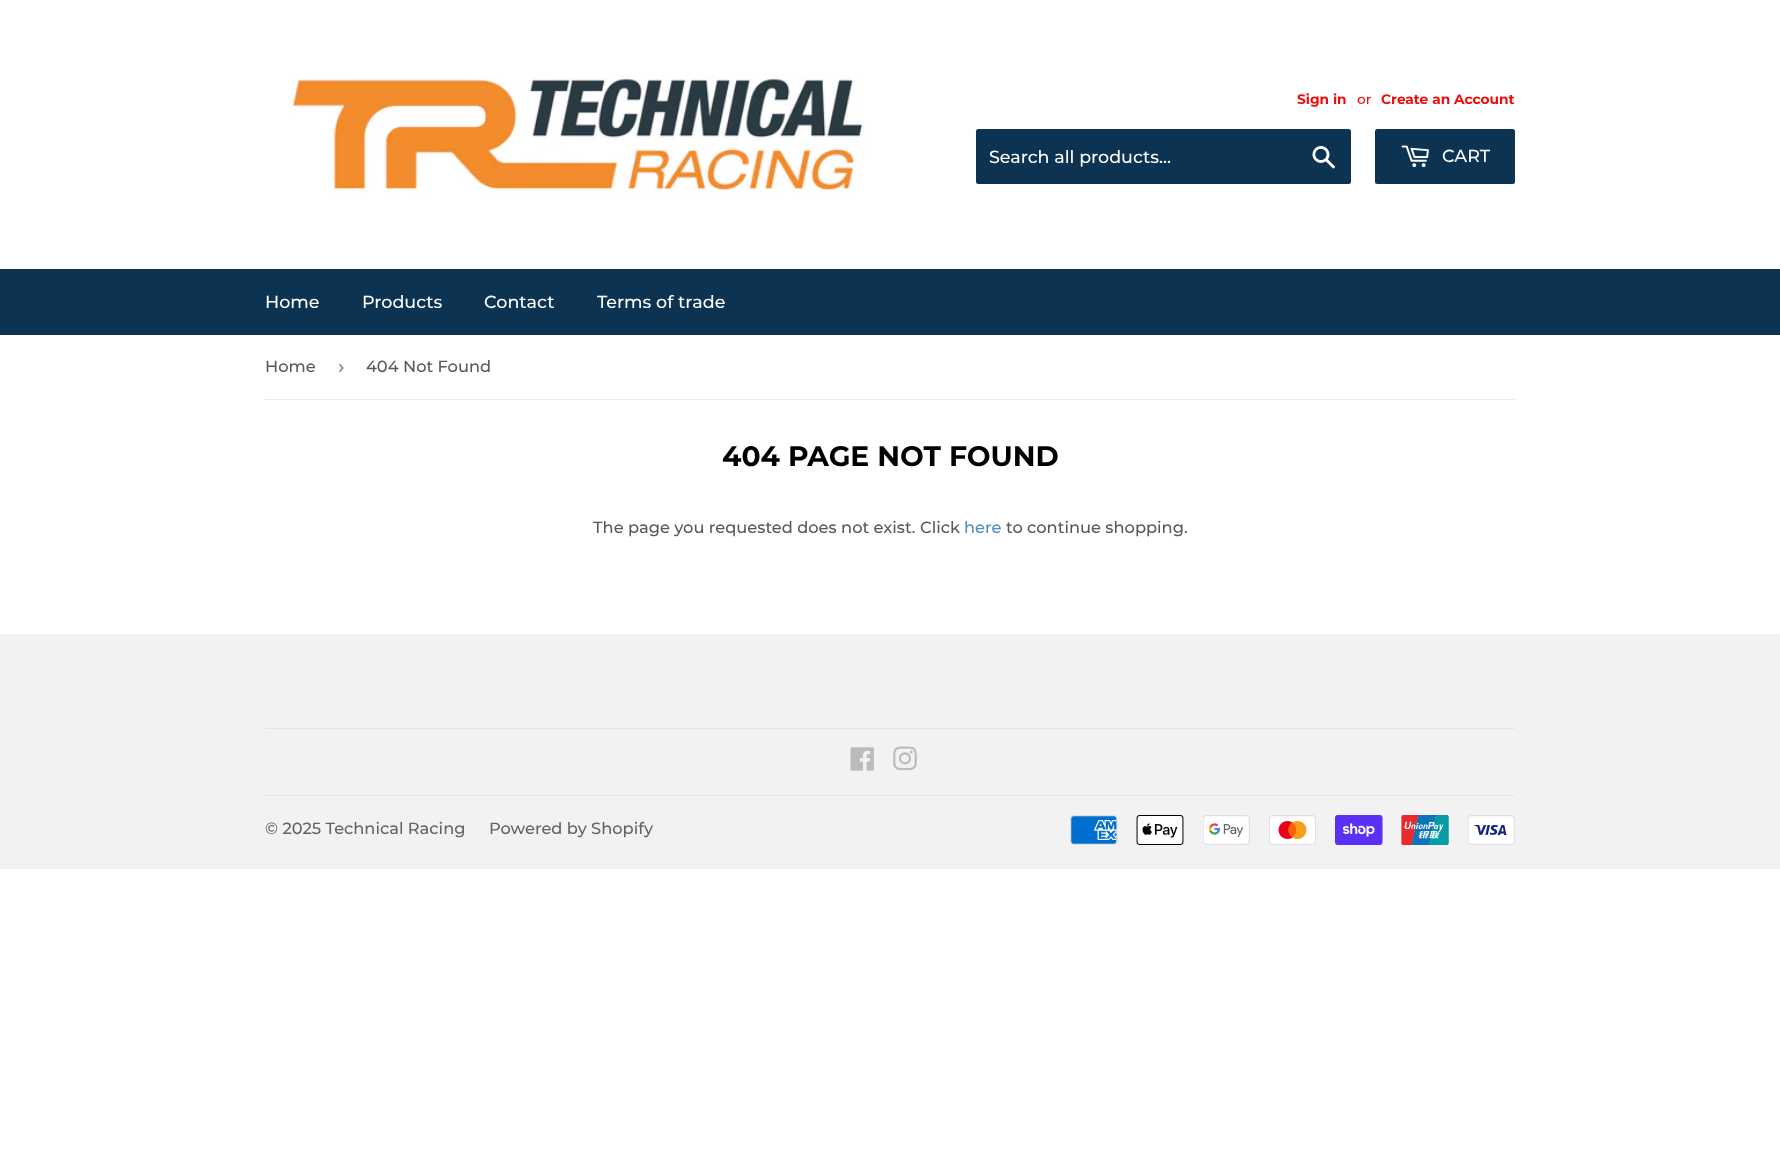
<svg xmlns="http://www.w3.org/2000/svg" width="1780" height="1164">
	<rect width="100%" height="100%" fill="#FFFFFF" />
	<image x="291" y="75" width="576" height="120" href="assets/img1.png" />
	<text x="1297" y="104" font-family="Montserrat" font-size="13.75" font-weight="700" fill="#F20B0B">Sign in</text>
	<text x="1357" y="104" font-family="Montserrat" font-size="13.75" font-weight="500" fill="#F20B0B">or</text>
	<text x="1381" y="104" font-family="Montserrat" font-size="13.75" font-weight="700" fill="#F20B0B">Create an Account</text>
	<rect x="976" y="129" width="375" height="55" rx="2.5" fill="#0D3353" />
	<text x="989" y="163" font-family="Montserrat" font-size="17.5" font-weight="500" fill="#FFFFFF">Search all products...</text>
	<image x="1312" y="146" width="23" height="23" href="assets/img2.png" />
	<rect x="1375" y="129" width="140" height="55" rx="2.5" fill="#0D3353" />
	<image x="1401" y="145" width="28" height="23" href="assets/img3.png" />
	<text x="1442" y="162" font-family="Montserrat" font-size="17.5" font-weight="500" fill="#FFFFFF">CART</text>
	<rect x="0" y="269" width="1780" height="66" fill="#0D3353" />
	<g font-family="Montserrat" font-size="17.5" font-weight="500" fill="#FFFFFF">
		<text x="265" y="308">Home</text>
		<text x="362" y="308">Products</text>
		<text x="484" y="308">Contact</text>
		<text x="597" y="308">Terms of trade</text>
	</g>
	<rect x="265" y="399" width="1250" height="1" fill="#ECECEC" />
	<text x="265" y="372" font-family="Montserrat" font-size="16.25" font-weight="500" fill="#585858">Home</text>
	<text x="338" y="373" font-family="Liberation Sans" font-size="19" fill="#767676">›</text>
	<text x="366" y="372" font-family="Montserrat" font-size="16.25" font-weight="500" fill="#585858">404 Not Found</text>
	<text x="722" y="466" font-family="Montserrat" font-size="28.2" font-weight="700" fill="#000000">404 PAGE NOT FOUND</text>
	<text x="593" y="533" font-family="Montserrat" font-size="16.25" font-weight="500" fill="#585858">The page you requested does not exist. Click</text>
	<text x="964" y="533" font-family="Montserrat" font-size="16.25" font-weight="500" fill="#528EC1">here</text>
	<text x="1006" y="533" font-family="Montserrat" font-size="16.25" font-weight="500" fill="#585858">to continue shopping.</text>
	<rect x="0" y="634" width="1780" height="235" fill="#F2F2F2" />
	<rect x="265" y="728" width="1250" height="1" fill="#E5E5E5" />
	<image x="850" y="747" width="24" height="24" href="assets/img4.png" />
	<image x="893" y="746" width="24" height="25" href="assets/img5.png" />
	<rect x="265" y="795" width="1250" height="1" fill="#E5E5E5" />
	<g font-family="Montserrat" font-size="16.25" font-weight="500" fill="#636363">
		<text x="265" y="834">© 2025 Technical Racing</text>
		<text x="489" y="834">Powered by Shopify</text>
	</g>
	<image x="1070" y="815" width="48" height="30" href="assets/img6.png" />
	<image x="1136" y="815" width="48" height="30" href="assets/img7.png" />
	<image x="1203" y="815" width="47" height="30" href="assets/img8.png" />
	<image x="1269" y="815" width="47" height="30" href="assets/img9.png" />
	<image x="1335" y="815" width="48" height="30" href="assets/img10.png" />
	<image x="1401" y="815" width="48" height="30" href="assets/img11.png" />
	<image x="1468" y="815" width="47" height="30" href="assets/img12.png" />
</svg>
